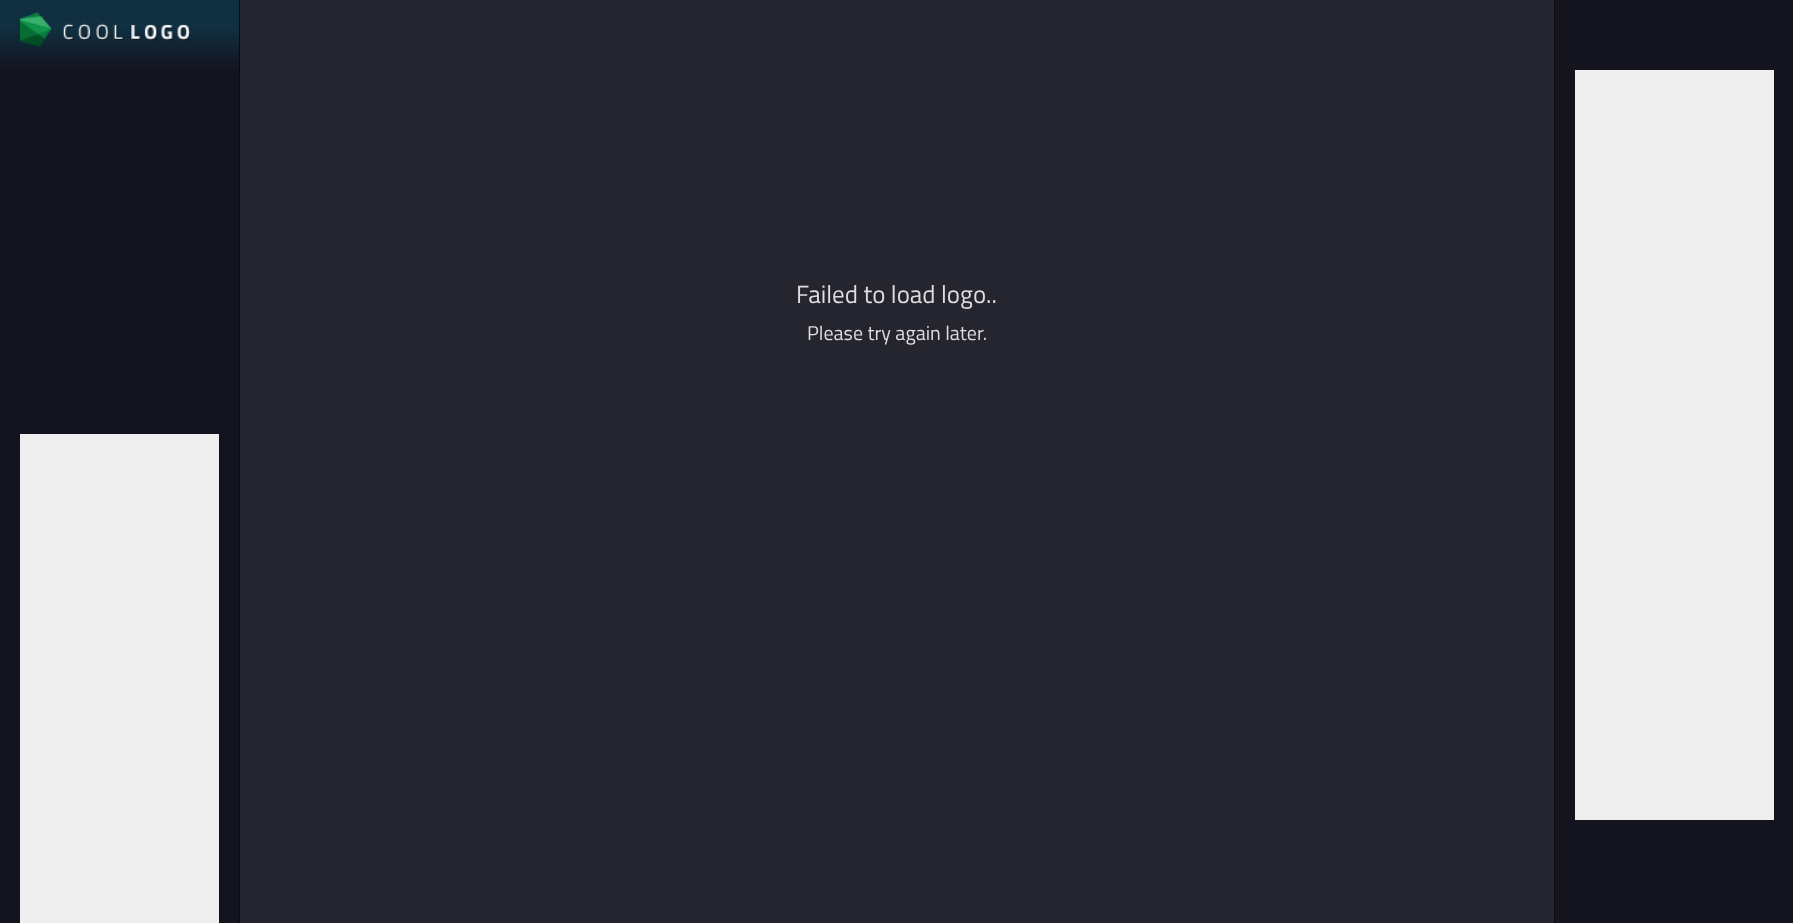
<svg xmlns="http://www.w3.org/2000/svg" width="1793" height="923">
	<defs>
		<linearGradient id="g1" gradientUnits="userSpaceOnUse" x1="119" y1="0" x2="119" y2="70"><stop offset="0.4" stop-color="#102F41" /><stop offset="1" stop-color="#14141E" /></linearGradient>
	</defs>
	<rect width="100%" height="100%" fill="#25252F" />
	<rect x="0" y="70" width="239" height="853" fill="#14141E" />
	<rect x="239" y="0" width="1" height="923" fill="#0A0A0F" />
	<rect x="0" y="0" width="239" height="70" fill="url(#g1)" />
	<image x="20" y="12" width="171" height="35" href="assets/img1.png" />
	<rect x="20" y="434" width="199" height="489" fill="#EEEEEE" />
	<text x="796" y="303" font-family="Titillium Web" font-size="25" fill="#DDDDDD">Failed to load logo..</text>
	<text x="807" y="340" font-family="Titillium Web" font-size="20" fill="#DDDDDD">Please try again later.</text>
	<rect x="1555" y="0" width="238" height="923" fill="#14141E" />
	<rect x="1554" y="0" width="1" height="923" fill="#0A0A0F" />
	<rect x="1575" y="70" width="199" height="750" fill="#EEEEEE" />
</svg>
